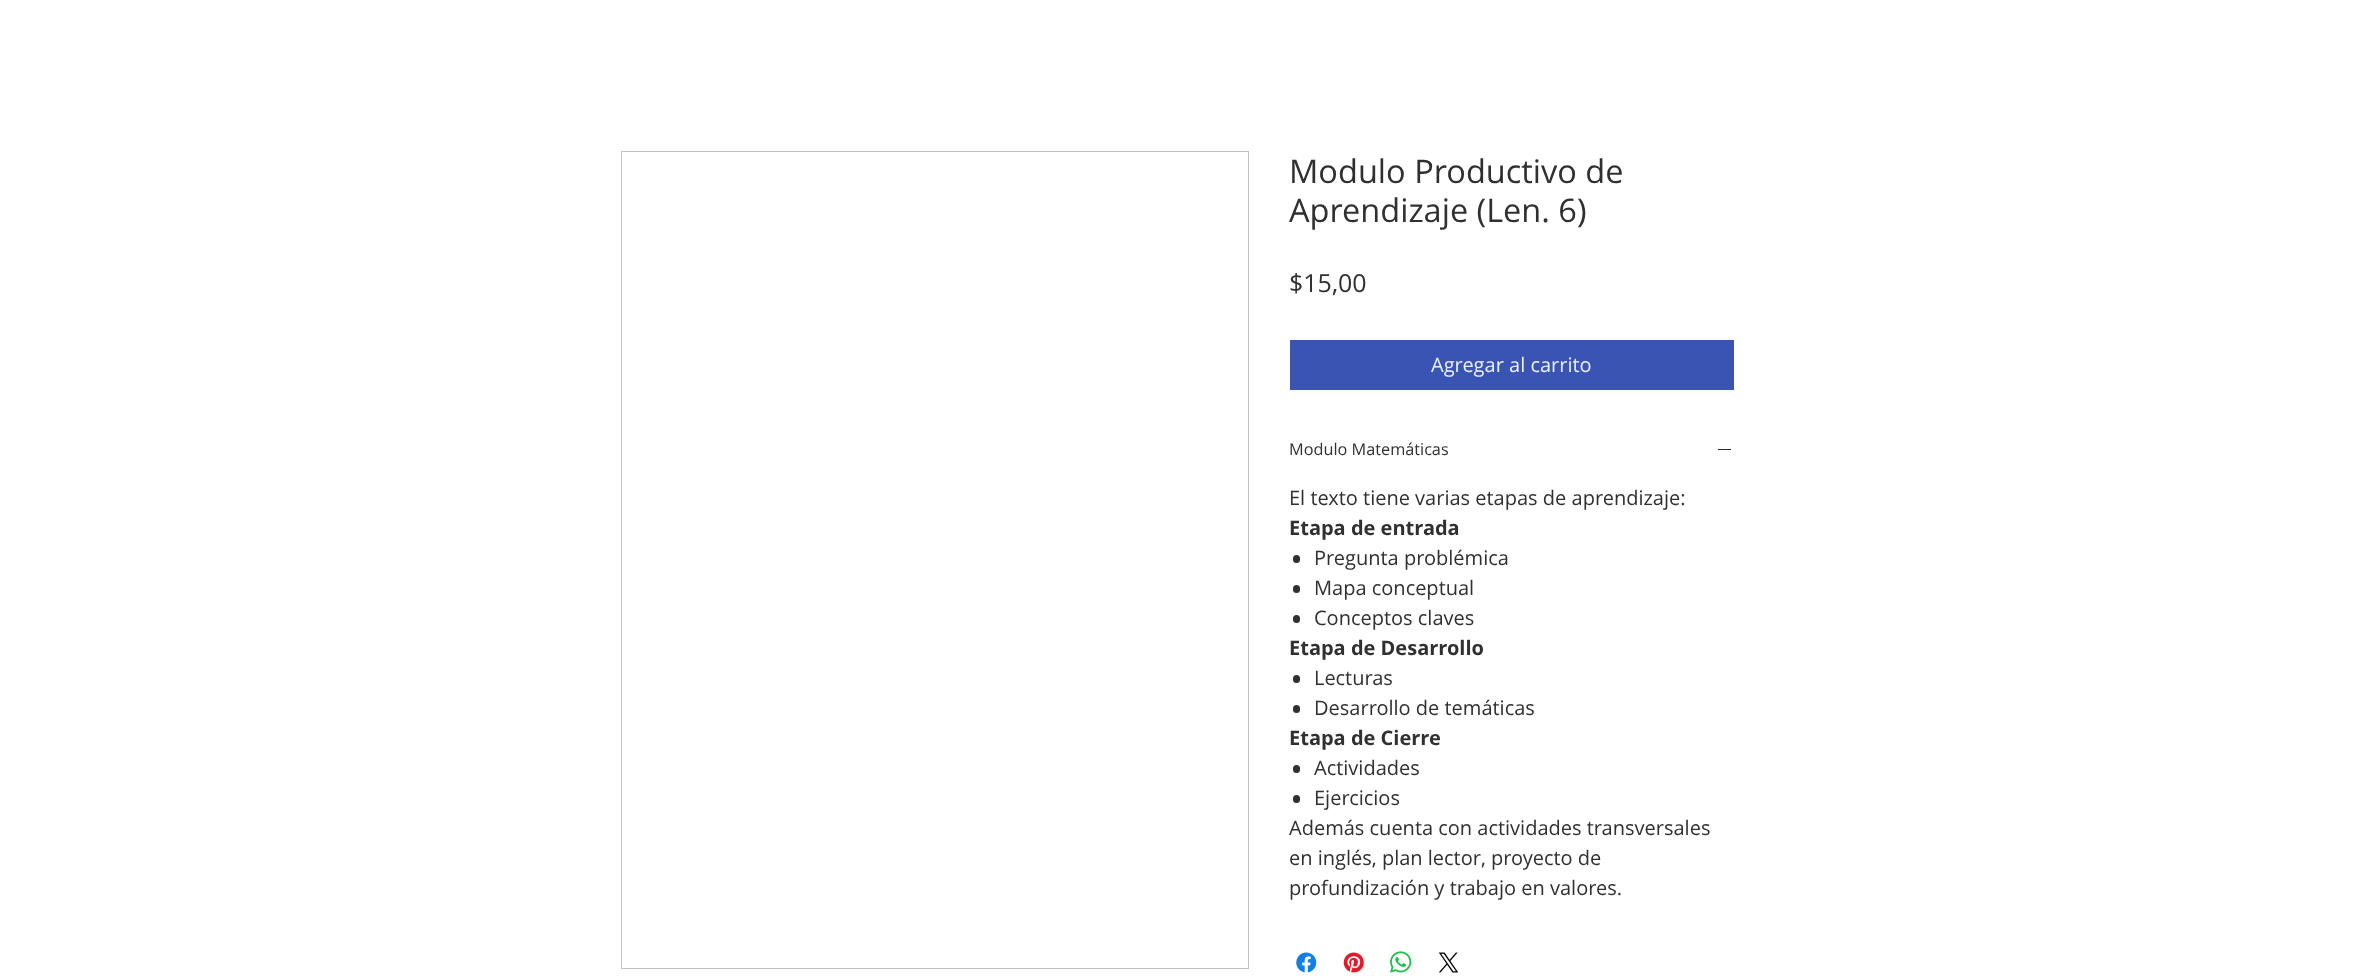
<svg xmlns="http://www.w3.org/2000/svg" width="2353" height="978">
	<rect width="100%" height="100%" fill="#FFFFFF" />
	<rect x="621.5" y="151.5" width="627" height="817" fill="none" stroke="#C0C0C0" />
	<g font-family="Open Sans" font-size="32.5" fill="#303030">
		<text x="1289" y="183">Modulo Productivo de</text>
		<text x="1289" y="222">Aprendizaje (Len. 6)</text>
	</g>
	<text x="1289" y="292" font-family="Open Sans" font-size="25" fill="#303030">$15,00</text>
	<rect x="1290" y="340" width="444" height="50" fill="#3A54B4" />
	<text x="1431" y="372" font-family="Open Sans" font-size="20" fill="#F0F0F0">Agregar al carrito</text>
	<text x="1289" y="455" font-family="Open Sans" font-size="16.25" fill="#303030">Modulo Matemáticas</text>
	<rect x="1718" y="449" width="13" height="1" fill="#303030" />
	<text x="1289" y="505" font-family="Open Sans" font-size="20" fill="#303030">El texto tiene varias etapas de aprendizaje:</text>
	<text x="1289" y="535" font-family="Open Sans" font-size="20" font-weight="700" fill="#303030">Etapa de entrada</text>
	<rect x="1293" y="555" width="7" height="8" rx="3.5" fill="#303030" />
	<text x="1314" y="565" font-family="Open Sans" font-size="20" fill="#303030">Pregunta problémica</text>
	<rect x="1293" y="585" width="7" height="8" rx="3.5" fill="#303030" />
	<text x="1314" y="595" font-family="Open Sans" font-size="20" fill="#303030">Mapa conceptual</text>
	<rect x="1293" y="615" width="7" height="8" rx="3.5" fill="#303030" />
	<text x="1314" y="625" font-family="Open Sans" font-size="20" fill="#303030">Conceptos claves</text>
	<text x="1289" y="655" font-family="Open Sans" font-size="20" font-weight="700" fill="#303030">Etapa de Desarrollo</text>
	<rect x="1293" y="675" width="7" height="8" rx="3.5" fill="#303030" />
	<text x="1314" y="685" font-family="Open Sans" font-size="20" fill="#303030">Lecturas</text>
	<rect x="1293" y="705" width="7" height="8" rx="3.5" fill="#303030" />
	<text x="1314" y="715" font-family="Open Sans" font-size="20" fill="#303030">Desarrollo de temáticas</text>
	<text x="1289" y="745" font-family="Open Sans" font-size="20" font-weight="700" fill="#303030">Etapa de Cierre</text>
	<rect x="1293" y="765" width="7" height="8" rx="3.5" fill="#303030" />
	<text x="1314" y="775" font-family="Open Sans" font-size="20" fill="#303030">Actividades</text>
	<rect x="1293" y="795" width="7" height="8" rx="3.5" fill="#303030" />
	<g font-family="Open Sans" font-size="20" fill="#303030">
		<text x="1314" y="805">Ejercicios</text>
		<text x="1289" y="835">Además cuenta con actividades transversales</text>
		<text x="1289" y="865">en inglés, plan lector, proyecto de</text>
		<text x="1289" y="895">profundización y trabajo en valores.</text>
	</g>
	<image x="1296" y="952" width="21" height="21" href="assets/img1.png" />
	<image x="1343" y="952" width="21" height="21" href="assets/img2.png" />
	<image x="1390" y="951" width="22" height="22" href="assets/img3.png" />
	<image x="1438" y="952" width="21" height="21" href="assets/img4.png" />
</svg>
